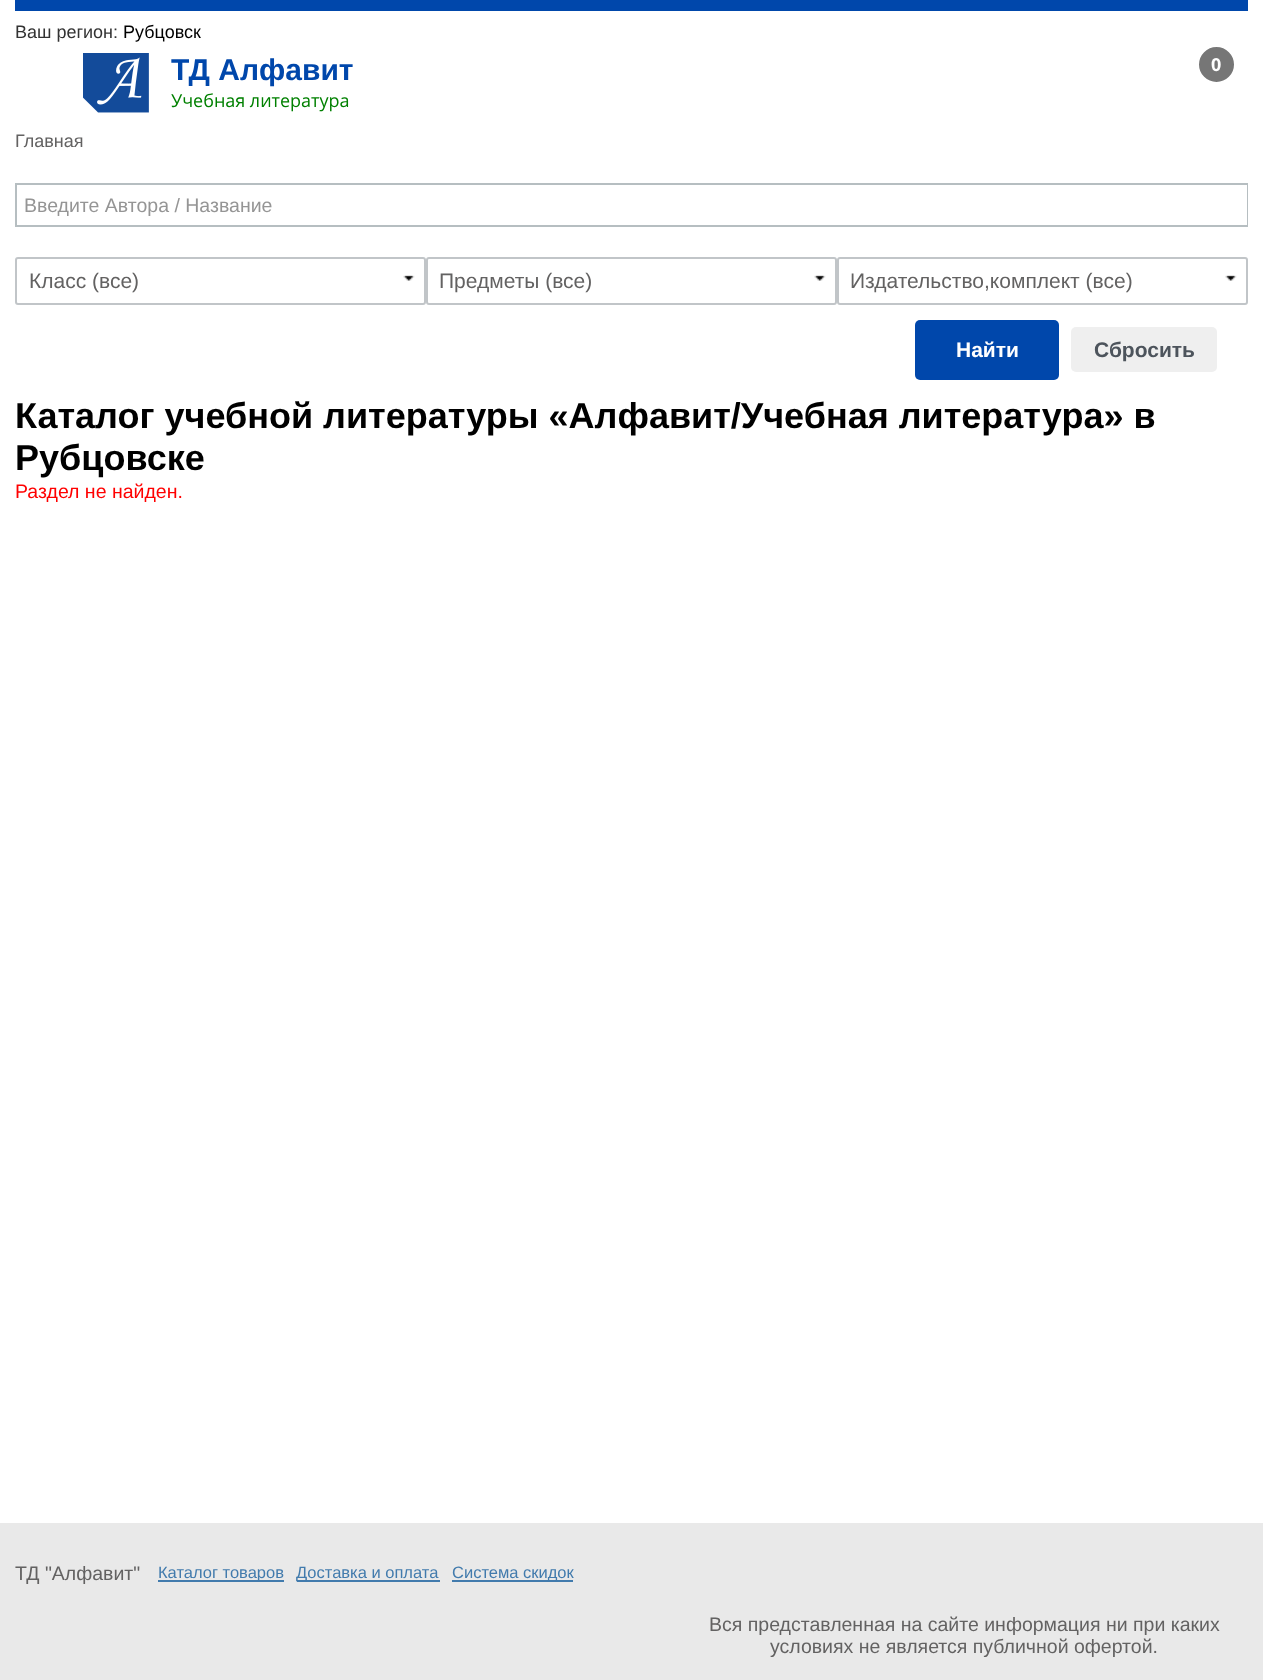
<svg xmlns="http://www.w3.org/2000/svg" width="1263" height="1680">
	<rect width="100%" height="100%" fill="#FFFFFF" />
	<rect x="15" y="0" width="1233" height="11" fill="#0047AB" />
	<text x="15" y="38" font-family="Liberation Sans" font-size="18" fill="#333333">Ваш регион:</text>
	<text x="123" y="38" font-family="Liberation Sans" font-size="18" fill="#000000">Рубцовск</text>
	<image x="83" y="53" width="66" height="60" href="assets/img1.png" />
	<text x="171" y="80" font-family="Liberation Sans" font-size="30" font-weight="700" fill="#0047AB">ТД Алфавит</text>
	<text x="171" y="107" font-family="Open Sans" font-size="18" fill="#008000">Учебная литература</text>
	<circle cx="1216.5" cy="64.5" r="21.5" fill="#767676" stroke="#FFFFFF" stroke-width="8" />
	<text x="1211" y="71" font-family="Open Sans" font-size="18" font-weight="700" fill="#FFFFFF">0</text>
	<text x="15" y="147" font-family="Liberation Sans" font-size="18" fill="#636262">Главная</text>
	<rect x="16" y="184" width="1231" height="42" fill="none" stroke="#B6BEC1" stroke-width="2" />
	<rect x="1246" y="185" width="1" height="40" fill="#FFFFFF" />
	<text x="24" y="212" font-family="Liberation Sans" font-size="19.5" fill="#959595">Введите Автора / Название</text>
	<image x="403" y="275" width="12" height="6" href="assets/img2.png" />
	<rect x="16" y="258" width="409" height="46" rx="2" fill="none" stroke="#C1C5C8" stroke-width="2" />
	<text x="29" y="288" font-family="Liberation Sans" font-size="21" fill="#636262">Класс (все)</text>
	<image x="814" y="275" width="12" height="6" href="assets/img3.png" />
	<rect x="427" y="258" width="409" height="46" rx="2" fill="none" stroke="#C1C5C8" stroke-width="2" />
	<text x="439" y="288" font-family="Liberation Sans" font-size="21" fill="#636262">Предметы (все)</text>
	<image x="1225" y="275" width="12" height="6" href="assets/img3.png" />
	<rect x="838" y="258" width="409" height="46" rx="2" fill="none" stroke="#C1C5C8" stroke-width="2" />
	<text x="850" y="288" font-family="Liberation Sans" font-size="21" fill="#636262">Издательство,комплект (все)</text>
	<rect x="915" y="320" width="144" height="60" rx="5" fill="#0047AB" />
	<text x="956" y="357" font-family="Liberation Sans" font-size="21" font-weight="700" fill="#FFFFFF">Найти</text>
	<rect x="1071" y="327" width="146" height="45" rx="5" fill="#EFEFEF" />
	<text x="1094" y="357" font-family="Liberation Sans" font-size="21" font-weight="700" fill="#4D545C">Сбросить</text>
	<g font-family="Liberation Sans" font-size="36" font-weight="700" fill="#000000">
		<text x="15" y="428">Каталог учебной литературы «Алфавит/Учебная литература» в</text>
		<text x="15" y="470">Рубцовске</text>
	</g>
	<text x="15" y="498" font-family="Liberation Sans" font-size="19.5" fill="#FF0000">Раздел не найден.</text>
	<rect x="0" y="1523" width="1263" height="157" fill="#E9E9E9" />
	<text x="15" y="1580" font-family="Liberation Sans" font-size="19.5" fill="#636262">ТД "Алфавит"</text>
	<rect x="158" y="1580" width="126" height="2" fill="#427BAD" />
	<text x="158" y="1578" font-family="Liberation Sans" font-size="16.5" fill="#427BAD">Каталог товаров</text>
	<rect x="297" y="1580" width="143" height="2" fill="#427BAD" />
	<text x="296" y="1578" font-family="Liberation Sans" font-size="16.5" fill="#427BAD">Доставка и оплата</text>
	<rect x="452" y="1580" width="121" height="2" fill="#427BAD" />
	<text x="452" y="1578" font-family="Liberation Sans" font-size="16.5" fill="#427BAD">Система скидок</text>
	<g font-family="Liberation Sans" font-size="19.5" fill="#636262">
		<text x="709" y="1631">Вся представленная на сайте информация ни при каких</text>
		<text x="770" y="1653">условиях не является публичной офертой.</text>
	</g>
</svg>
